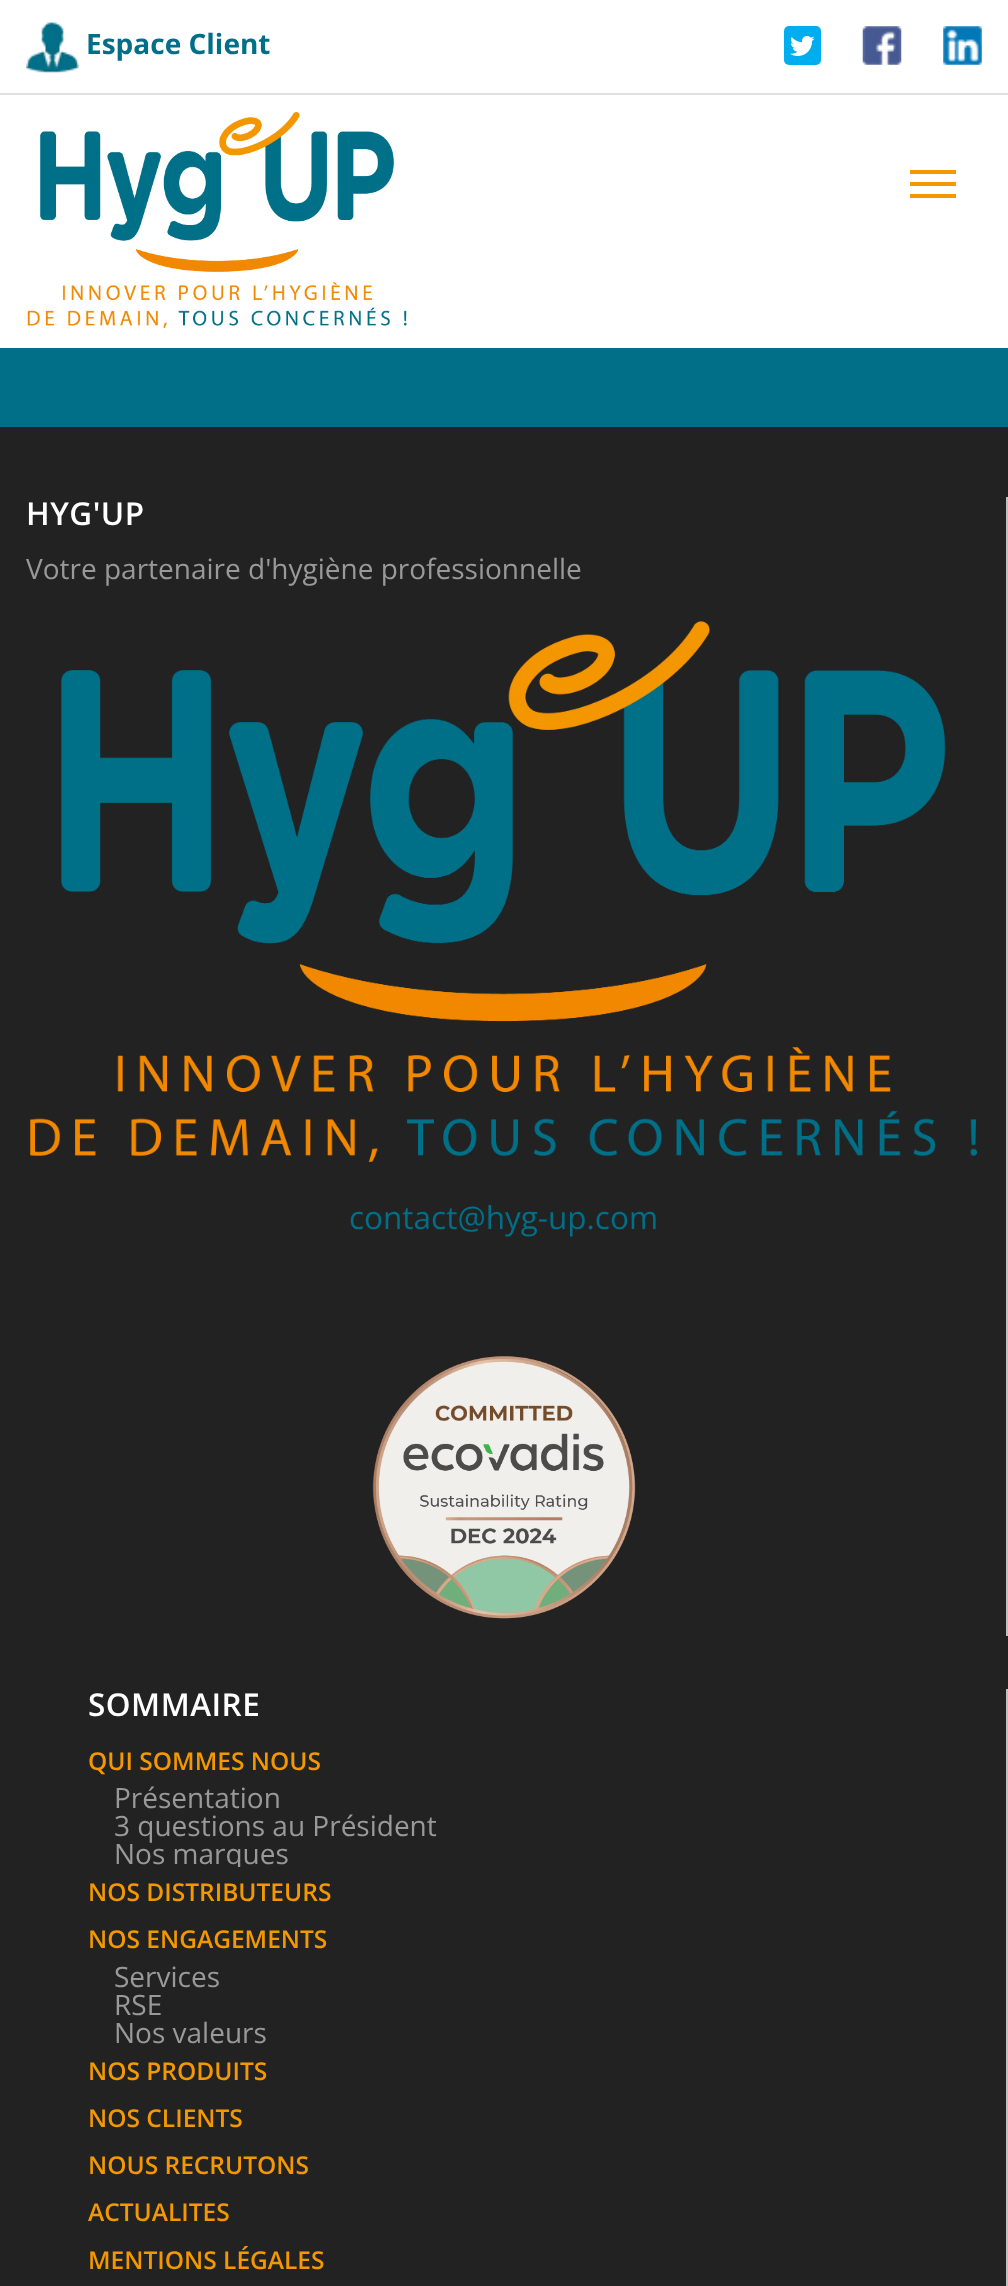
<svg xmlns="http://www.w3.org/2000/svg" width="1008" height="2286">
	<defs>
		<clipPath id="clip1"><rect x="88" y="1743" width="892" height="124" /></clipPath>
	</defs>
	<rect width="100%" height="100%" fill="#FFFFFF" />
	<rect x="0" y="93" width="1008" height="2" fill="#E1E1E1" />
	<image x="26" y="22" width="53" height="52" href="assets/img1.png" />
	<text x="86" y="54" font-family="Open Sans" font-size="28" font-weight="700" fill="#006F87">Espace Client</text>
	<rect x="784" y="26" width="37" height="39" rx="5" fill="#00AEEF" />
	<image x="790" y="36" width="25" height="20" href="assets/img2.png" />
	<image x="862" y="26" width="40" height="39" href="assets/img3.png" />
	<image x="943" y="26" width="39" height="39" href="assets/img4.png" />
	<image x="27" y="112" width="380" height="217" href="assets/img5.png" />
	<rect x="910" y="170" width="46" height="4" fill="#F39800" />
	<rect x="910" y="182" width="46" height="4" fill="#F39800" />
	<rect x="910" y="194" width="46" height="4" fill="#F39800" />
	<rect x="0" y="348" width="1008" height="79" fill="#006F87" />
	<rect x="0" y="427" width="1008" height="1859" fill="#222222" />
	<rect x="1006" y="497" width="2" height="1139" fill="#C0C0C0" />
	<text x="26" y="525" font-family="Open Sans" font-size="31.5" font-weight="600" letter-spacing="0.5" fill="#FFFFFF">HYG'UP</text>
	<text x="26" y="579" font-family="Open Sans" font-size="28" fill="#999999">Votre partenaire d'hygiène professionnelle</text>
	<image x="30" y="621" width="947" height="541" href="assets/img6.png" />
	<text x="349" y="1229" font-family="Open Sans" font-size="31.5" fill="#006F87">contact@hyg-up.com</text>
	<image x="372" y="1356" width="264" height="263" href="assets/img7.png" />
	<rect x="1006" y="1689" width="2" height="597" fill="#C0C0C0" />
	<text x="88" y="1716" font-family="Open Sans" font-size="31.5" font-weight="600" letter-spacing="0.5" fill="#FFFFFF">SOMMAIRE</text>
	<text x="88" y="1770" font-family="Open Sans" font-size="24.5" font-weight="600" fill="#F39800">QUI SOMMES NOUS</text>
	<g font-family="Open Sans" font-size="28" fill="#999999">
		<text x="114" y="1808">Présentation</text>
		<text x="114" y="1836">3 questions au Président</text>
	</g>
	<g clip-path="url(#clip1)">
		<text x="114" y="1864" font-family="Open Sans" font-size="28" fill="#999999">Nos marques</text>
	</g>
	<g font-family="Open Sans" font-size="24.5" font-weight="600" fill="#F39800">
		<text x="88" y="1901">NOS DISTRIBUTEURS</text>
		<text x="88" y="1948">NOS ENGAGEMENTS</text>
	</g>
	<g font-family="Open Sans" font-size="28" fill="#999999">
		<text x="114" y="1987">Services</text>
		<text x="114" y="2015">RSE</text>
		<text x="114" y="2043">Nos valeurs</text>
	</g>
	<g font-family="Open Sans" font-size="24.5" font-weight="600" fill="#F39800">
		<text x="88" y="2080">NOS PRODUITS</text>
		<text x="88" y="2127">NOS CLIENTS</text>
		<text x="88" y="2174">NOUS RECRUTONS</text>
		<text x="88" y="2221">ACTUALITES</text>
		<text x="88" y="2269">MENTIONS LÉGALES</text>
	</g>
</svg>
